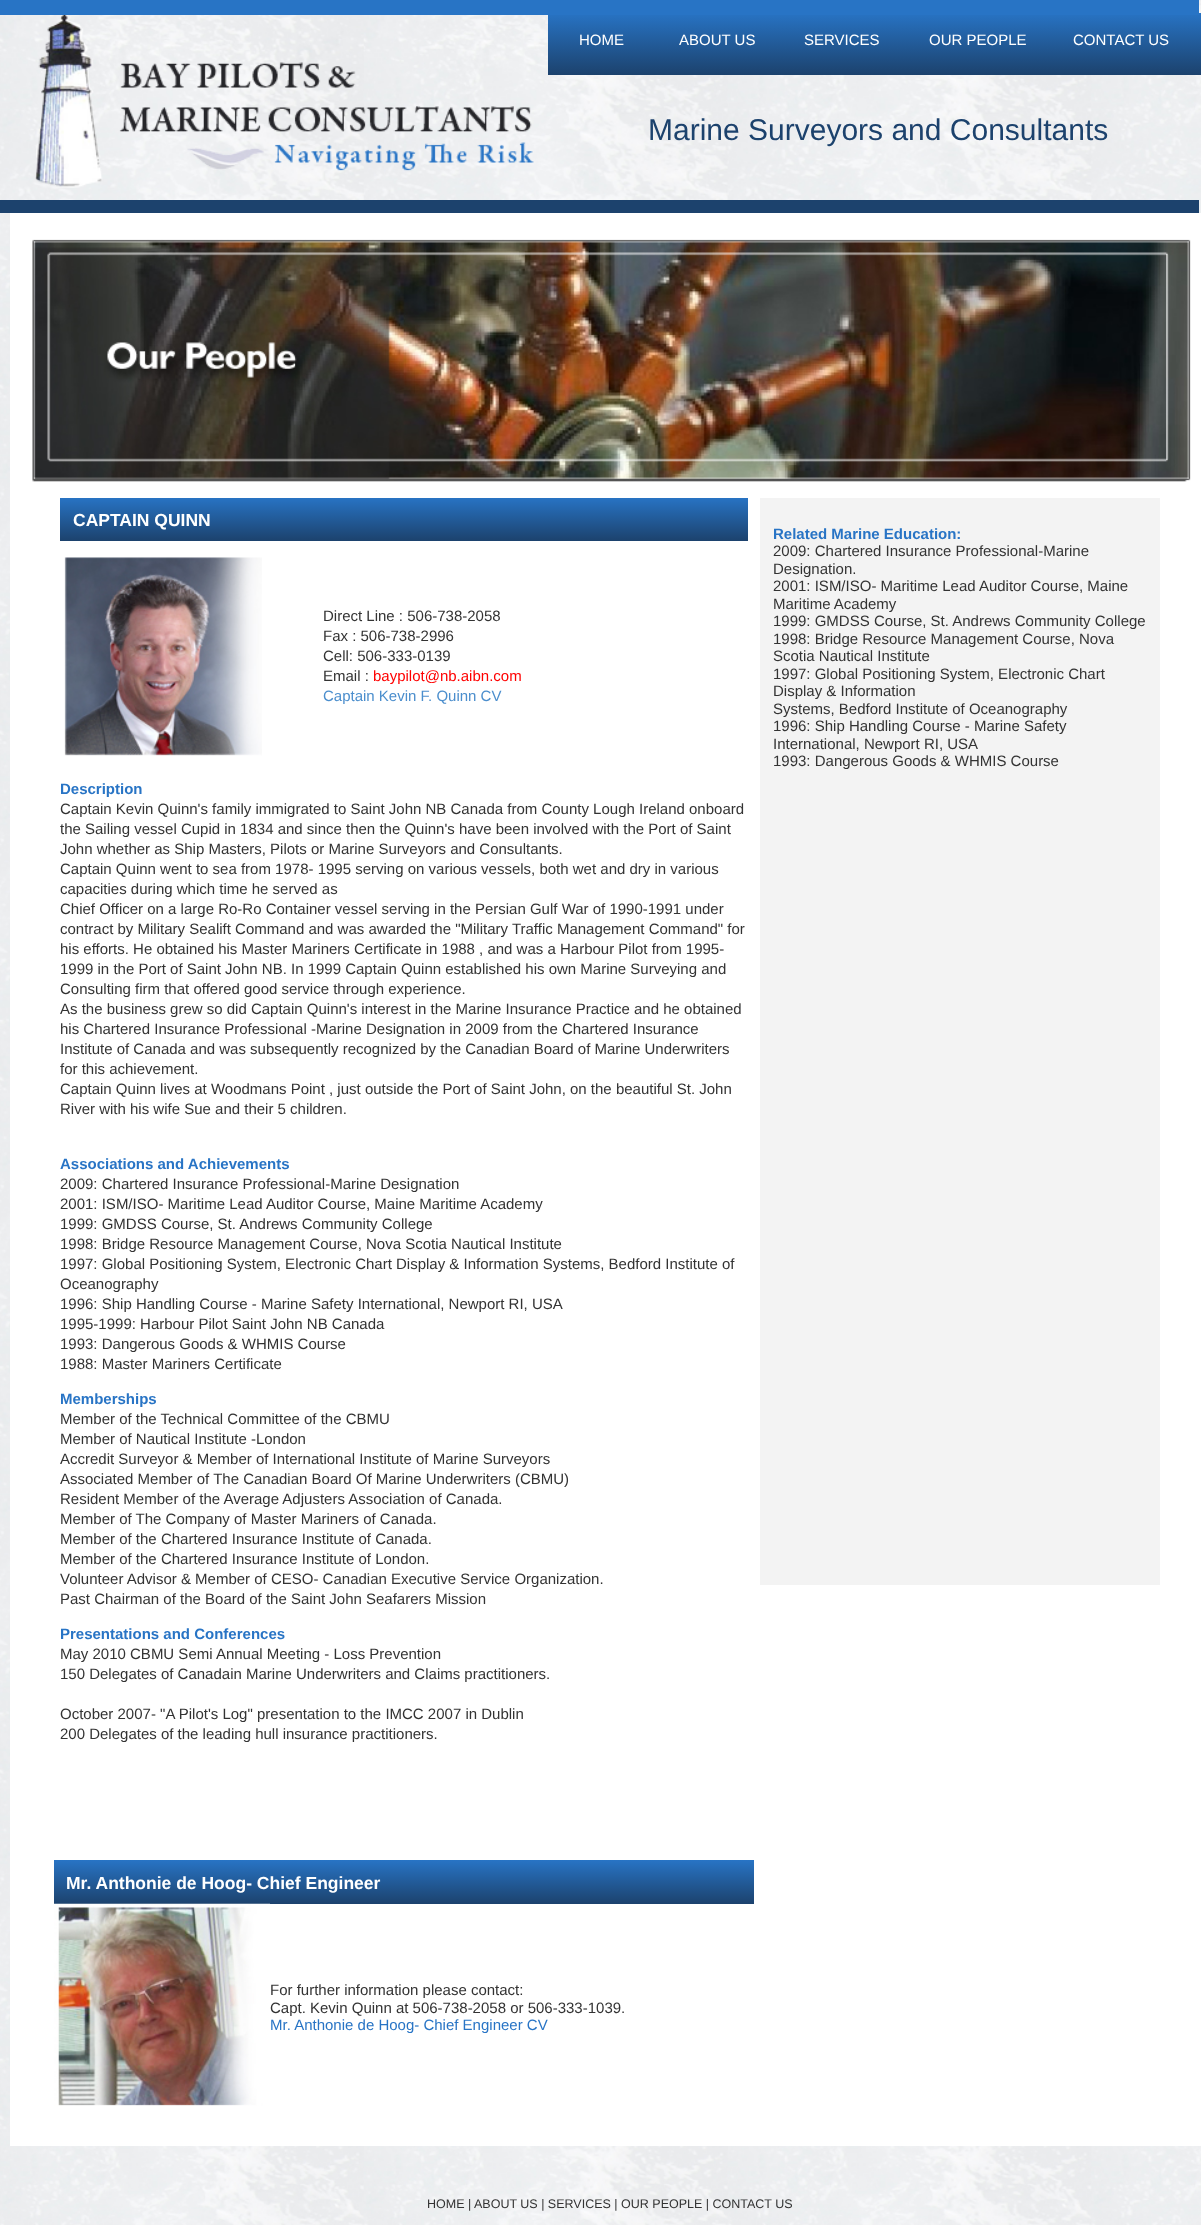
<svg xmlns="http://www.w3.org/2000/svg" width="1201" height="2225">
	<defs>
		<linearGradient id="g1" gradientUnits="userSpaceOnUse" x1="879" y1="12" x2="879" y2="75"><stop offset="0" stop-color="#2874C5" /><stop offset="1" stop-color="#1C426D" /></linearGradient>
		<linearGradient id="g2" gradientUnits="userSpaceOnUse" x1="404" y1="497" x2="404" y2="541"><stop offset="0" stop-color="#2874C5" /><stop offset="1" stop-color="#1C426D" /></linearGradient>
		<linearGradient id="g3" gradientUnits="userSpaceOnUse" x1="404" y1="1860" x2="404" y2="1904"><stop offset="0" stop-color="#2874C5" /><stop offset="1" stop-color="#1C426D" /></linearGradient>
	</defs>
	<rect width="100%" height="100%" fill="#FFFFFF" />
	<image x="0" y="0" width="1201" height="2225" href="assets/img1.png" />
	<rect x="548" y="13" width="653" height="62" fill="url(#g1)" />
	<rect x="0" y="0" width="1199" height="15" fill="#2874C5" />
	<image x="35" y="15" width="499" height="173" href="assets/img2.png" />
	<g font-family="Liberation Sans" font-size="15" fill="#FFFFFF">
		<text x="579" y="45">HOME</text>
		<text x="679" y="45">ABOUT US</text>
		<text x="804" y="45">SERVICES</text>
		<text x="929" y="45">OUR PEOPLE</text>
		<text x="1073" y="45">CONTACT US</text>
	</g>
	<text x="648" y="140" font-family="Liberation Sans" font-size="30" fill="#1C426D">Marine Surveyors and Consultants</text>
	<rect x="0" y="200" width="1199" height="13" fill="#1C426D" />
	<rect x="10" y="213" width="1191" height="1933" fill="#FFFFFF" />
	<image x="32" y="239" width="1159" height="243" href="assets/img3.png" />
	<rect x="60" y="498" width="688" height="43" fill="url(#g2)" />
	<text x="73" y="526" font-family="Liberation Sans" font-size="17.5" font-weight="700" fill="#FFFFFF">CAPTAIN QUINN</text>
	<image x="64" y="557" width="198" height="199" href="assets/img4.png" />
	<g font-family="Liberation Sans" font-size="15" fill="#333333">
		<text x="323" y="621">Direct Line : 506-738-2058</text>
		<text x="323" y="641">Fax : 506-738-2996</text>
		<text x="323" y="661">Cell: 506-333-0139</text>
		<text x="323" y="681">Email :</text>
	</g>
	<text x="373" y="681" font-family="Liberation Sans" font-size="15" fill="#FF0000">baypilot@nb.aibn.com</text>
	<text x="323" y="701" font-family="Liberation Sans" font-size="15" fill="#4B8ECD">Captain Kevin F. Quinn CV</text>
	<text x="60" y="794" font-family="Liberation Sans" font-size="15" font-weight="700" fill="#2874C5">Description</text>
	<g font-family="Liberation Sans" font-size="15" fill="#333333">
		<text x="60" y="814">Captain Kevin Quinn's family immigrated to Saint John NB Canada from County Lough Ireland onboard</text>
		<text x="60" y="834">the Sailing vessel Cupid in 1834 and since then the Quinn's have been involved with the Port of Saint</text>
		<text x="60" y="854">John whether as Ship Masters, Pilots or Marine Surveyors and Consultants.</text>
		<text x="60" y="874">Captain Quinn went to sea from 1978- 1995 serving on various vessels, both wet and dry in various</text>
		<text x="60" y="894">capacities during which time he served as</text>
		<text x="60" y="914">Chief Officer on a large Ro-Ro Container vessel serving in the Persian Gulf War of 1990-1991 under</text>
		<text x="60" y="934">contract by Military Sealift Command and was awarded the "Military Traffic Management Command" for</text>
		<text x="60" y="954">his efforts. He obtained his Master Mariners Certificate in 1988 , and was a Harbour Pilot from 1995-</text>
		<text x="60" y="974">1999 in the Port of Saint John NB. In 1999 Captain Quinn established his own Marine Surveying and</text>
		<text x="60" y="994">Consulting firm that offered good service through experience.</text>
		<text x="60" y="1014">As the business grew so did Captain Quinn's interest in the Marine Insurance Practice and he obtained</text>
		<text x="60" y="1034">his Chartered Insurance Professional -Marine Designation in 2009 from the Chartered Insurance</text>
		<text x="60" y="1054">Institute of Canada and was subsequently recognized by the Canadian Board of Marine Underwriters</text>
		<text x="60" y="1074">for this achievement.</text>
		<text x="60" y="1094">Captain Quinn lives at Woodmans Point , just outside the Port of Saint John, on the beautiful St. John</text>
		<text x="60" y="1114">River with his wife Sue and their 5 children.</text>
	</g>
	<text x="60" y="1169" font-family="Liberation Sans" font-size="15" font-weight="700" fill="#2874C5">Associations and Achievements</text>
	<g font-family="Liberation Sans" font-size="15" fill="#333333">
		<text x="60" y="1189">2009: Chartered Insurance Professional-Marine Designation</text>
		<text x="60" y="1209">2001: ISM/ISO- Maritime Lead Auditor Course, Maine Maritime Academy</text>
		<text x="60" y="1229">1999: GMDSS Course, St. Andrews Community College</text>
		<text x="60" y="1249">1998: Bridge Resource Management Course, Nova Scotia Nautical Institute</text>
		<text x="60" y="1269">1997: Global Positioning System, Electronic Chart Display &amp; Information Systems, Bedford Institute of</text>
		<text x="60" y="1289">Oceanography</text>
		<text x="60" y="1309">1996: Ship Handling Course - Marine Safety International, Newport RI, USA</text>
		<text x="60" y="1329">1995-1999: Harbour Pilot Saint John NB Canada</text>
		<text x="60" y="1349">1993: Dangerous Goods &amp; WHMIS Course</text>
		<text x="60" y="1369">1988: Master Mariners Certificate</text>
	</g>
	<text x="60" y="1404" font-family="Liberation Sans" font-size="15" font-weight="700" fill="#2874C5">Memberships</text>
	<g font-family="Liberation Sans" font-size="15" fill="#333333">
		<text x="60" y="1424">Member of the Technical Committee of the CBMU</text>
		<text x="60" y="1444">Member of Nautical Institute -London</text>
		<text x="60" y="1464">Accredit Surveyor &amp; Member of International Institute of Marine Surveyors</text>
		<text x="60" y="1484">Associated Member of The Canadian Board Of Marine Underwriters (CBMU)</text>
		<text x="60" y="1504">Resident Member of the Average Adjusters Association of Canada.</text>
		<text x="60" y="1524">Member of The Company of Master Mariners of Canada.</text>
		<text x="60" y="1544">Member of the Chartered Insurance Institute of Canada.</text>
		<text x="60" y="1564">Member of the Chartered Insurance Institute of London.</text>
		<text x="60" y="1584">Volunteer Advisor &amp; Member of CESO- Canadian Executive Service Organization.</text>
		<text x="60" y="1604">Past Chairman of the Board of the Saint John Seafarers Mission</text>
	</g>
	<text x="60" y="1639" font-family="Liberation Sans" font-size="15" font-weight="700" fill="#2874C5">Presentations and Conferences</text>
	<g font-family="Liberation Sans" font-size="15" fill="#333333">
		<text x="60" y="1659">May 2010 CBMU Semi Annual Meeting - Loss Prevention</text>
		<text x="60" y="1679">150 Delegates of Canadain Marine Underwriters and Claims practitioners.</text>
		<text x="60" y="1719">October 2007- "A Pilot's Log" presentation to the IMCC 2007 in Dublin</text>
		<text x="60" y="1739">200 Delegates of the leading hull insurance practitioners.</text>
	</g>
	<rect x="760" y="498" width="400" height="1087" fill="#F3F3F3" />
	<text x="773" y="539" font-family="Liberation Sans" font-size="15" font-weight="700" fill="#2874C5">Related Marine Education:</text>
	<g font-family="Liberation Sans" font-size="15" fill="#333333">
		<text x="773" y="556">2009: Chartered Insurance Professional-Marine</text>
		<text x="773" y="574">Designation.</text>
		<text x="773" y="591">2001: ISM/ISO- Maritime Lead Auditor Course, Maine</text>
		<text x="773" y="609">Maritime Academy</text>
		<text x="773" y="626">1999: GMDSS Course, St. Andrews Community College</text>
		<text x="773" y="644">1998: Bridge Resource Management Course, Nova</text>
		<text x="773" y="661">Scotia Nautical Institute</text>
		<text x="773" y="679">1997: Global Positioning System, Electronic Chart</text>
		<text x="773" y="696">Display &amp; Information</text>
		<text x="773" y="714">Systems, Bedford Institute of Oceanography</text>
		<text x="773" y="731">1996: Ship Handling Course - Marine Safety</text>
		<text x="773" y="749">International, Newport RI, USA</text>
		<text x="773" y="766">1993: Dangerous Goods &amp; WHMIS Course</text>
	</g>
	<rect x="54" y="1860" width="700" height="44" fill="url(#g3)" />
	<text x="66" y="1889" font-family="Liberation Sans" font-size="17.5" font-weight="700" fill="#FFFFFF">Mr. Anthonie de Hoog- Chief Engineer</text>
	<image x="54" y="1903" width="216" height="203" href="assets/img5.png" />
	<g font-family="Liberation Sans" font-size="15" fill="#333333">
		<text x="270" y="1995">For further information please contact:</text>
		<text x="270" y="2013">Capt. Kevin Quinn at 506-738-2058 or 506-333-1039.</text>
	</g>
	<text x="270" y="2030" font-family="Liberation Sans" font-size="15" fill="#2874C5">Mr. Anthonie de Hoog- Chief Engineer CV</text>
	<g font-family="Liberation Sans" font-size="12.5" fill="#333333">
		<text x="427" y="2208">HOME</text>
		<text x="468" y="2208">|</text>
		<text x="474" y="2208">ABOUT US | SERVICES | OUR PEOPLE | CONTACT US</text>
	</g>
</svg>
